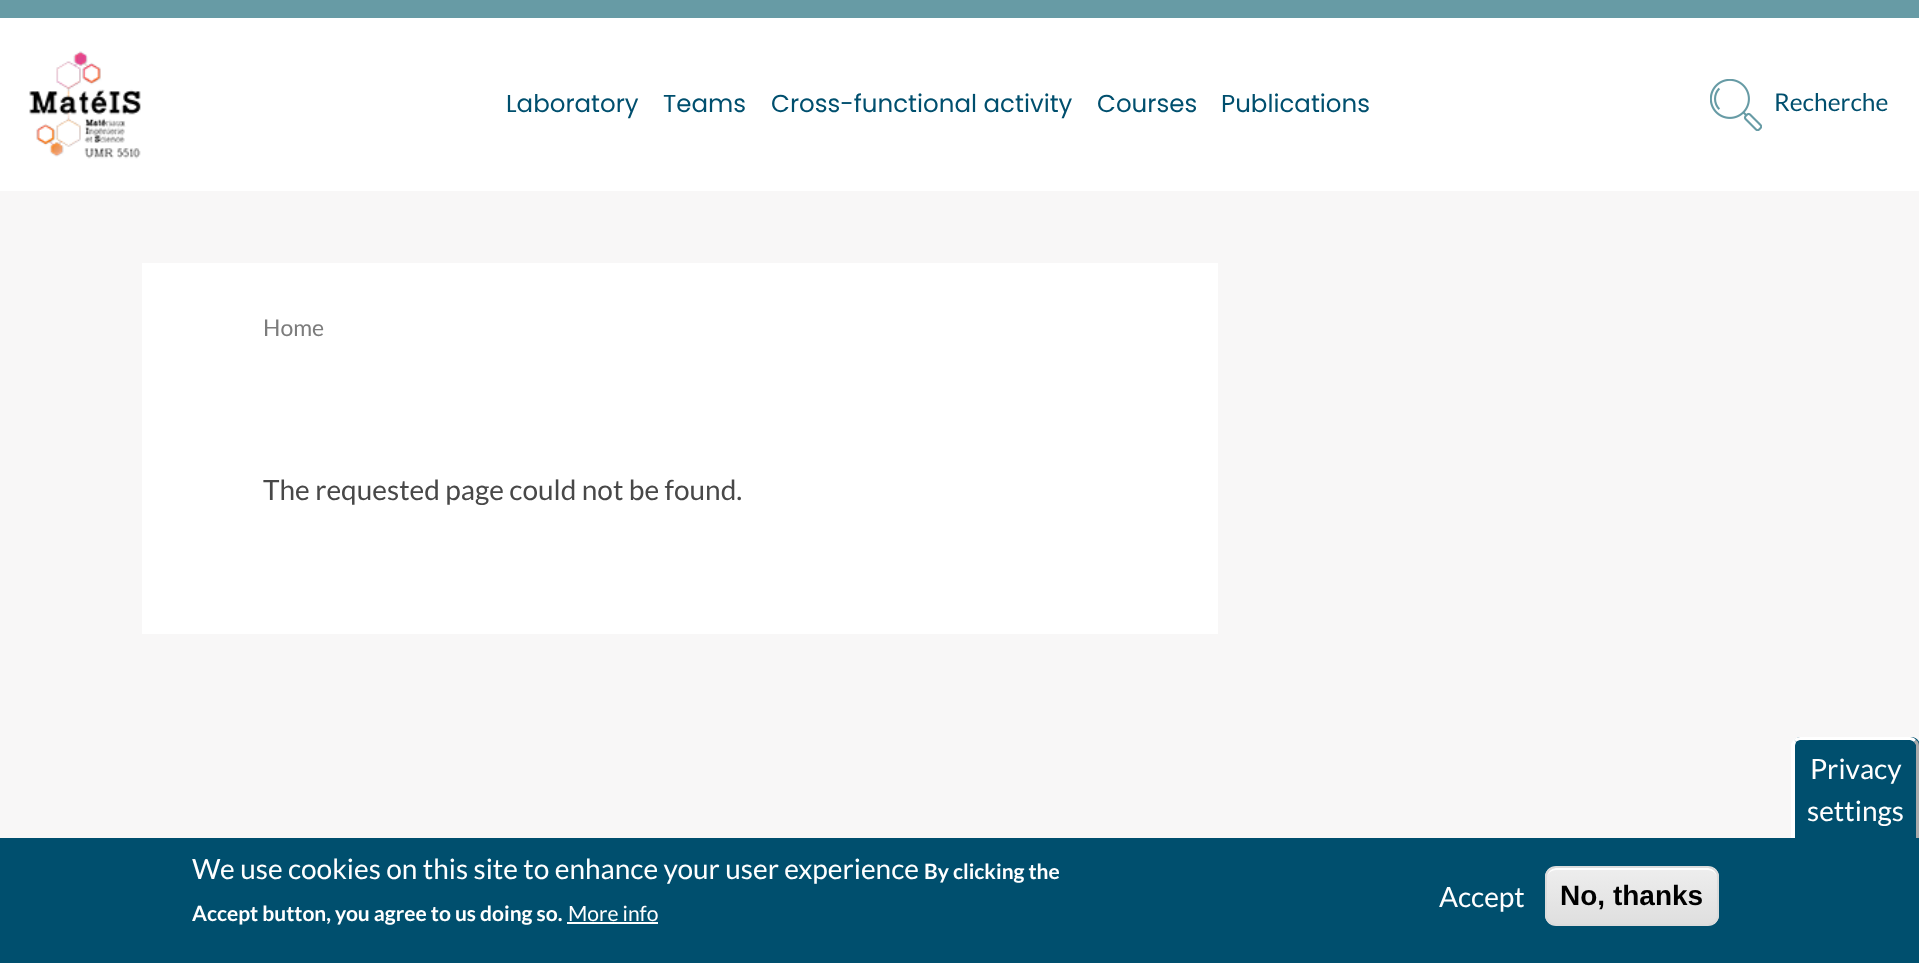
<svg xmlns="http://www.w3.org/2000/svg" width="1919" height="963">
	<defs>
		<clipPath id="clip1"><rect x="1545" y="866" width="174" height="60" rx="11" /></clipPath>
		<linearGradient id="g1" gradientUnits="userSpaceOnUse" x1="1632" y1="868" x2="1632" y2="924"><stop offset="0.05" stop-color="#EDEDED" /><stop offset="1" stop-color="#DFDFDF" /></linearGradient>
	</defs>
	<rect width="100%" height="100%" fill="#F8F7F7" />
	<rect x="0" y="18" width="1919" height="173" fill="#FFFFFF" />
	<rect x="0" y="0" width="1919" height="18" fill="#679BA5" />
	<image x="29" y="51" width="112" height="108" href="assets/img1.png" />
	<g font-family="Poppins" font-size="24.5" fill="#004F6E">
		<text x="506" y="112">Laboratory</text>
		<text x="663" y="112">Teams</text>
		<text x="771" y="112">Cross-functional activity</text>
		<text x="1097" y="112">Courses</text>
		<text x="1221" y="112">Publications</text>
	</g>
	<image x="1710" y="79" width="52" height="52" href="assets/img2.png" />
	<text x="1774" y="111" font-family="Lato" font-size="24.5" fill="#004F6E">Recherche</text>
	<rect x="142" y="263" width="1076" height="371" fill="#FFFFFF" />
	<text x="263" y="336" font-family="Lato" font-size="23" fill="#7C7C7C">Home</text>
	<text x="263" y="500" font-family="Lato" font-size="28" fill="#484848">The requested page could not be found.</text>
	<rect x="0" y="838" width="1919" height="125" fill="#004F6E" />
	<path d="M1801 737H1911C1916 737 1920 741 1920 746V838H1792V746C1792 741 1796 737 1801 737Z" fill="#004F6E" />
	<path d="M1800 737H1910C1912 737 1915 738 1916 740L1914 742C1913 741 1911 740 1910 740H1800C1799 740 1797 741 1796 742L1794 739C1796 738 1798 737 1800 737Z" fill="#FFFFFF" />
	<path d="M1914 742L1916 745V838H1919V746C1919 743 1918 741 1916 740Z" fill="#AAAAAA" />
	<path d="M1794 739L1796 742C1796 743 1795 744 1795 746V838H1791V744Z" fill="#FFFFFF" />
	<g font-family="Lato" font-size="28" fill="#FFFFFF">
		<text x="1810" y="779">Privacy</text>
		<text x="1807" y="821">settings</text>
		<text x="192" y="879">We use cookies on this site to enhance your user experience</text>
	</g>
	<g font-family="Lato" font-size="21" font-weight="700" fill="#FFFFFF">
		<text x="924" y="879">By clicking the</text>
		<text x="192" y="921">Accept button, you agree to us doing so.</text>
	</g>
	<text x="568" y="921" font-family="Lato" font-size="21" fill="#FFFFFF">More info</text>
	<rect x="567" y="922" width="91" height="2" fill="#FFFFFF" />
	<text x="1439" y="907" font-family="Lato" font-size="28" fill="#FFFFFF">Accept</text>
	<g clip-path="url(#clip1)">
		<rect x="1545" y="868" width="174" height="56" fill="url(#g1)" />
	</g>
	<path d="M1556 870H1708C1713 870 1717 874 1717 878C1717 862 1690 868 1683 868H1581C1574 868 1547 862 1547 878C1547 874 1551 870 1556 870Z" fill="#FFFFFF" />
	<rect x="1546" y="867" width="172" height="58" rx="10" fill="none" stroke="#DCDCDC" stroke-width="2" />
	<text x="1560" y="905" font-family="Liberation Sans" font-size="28" font-weight="700" fill="#000000">No, thanks</text>
</svg>
